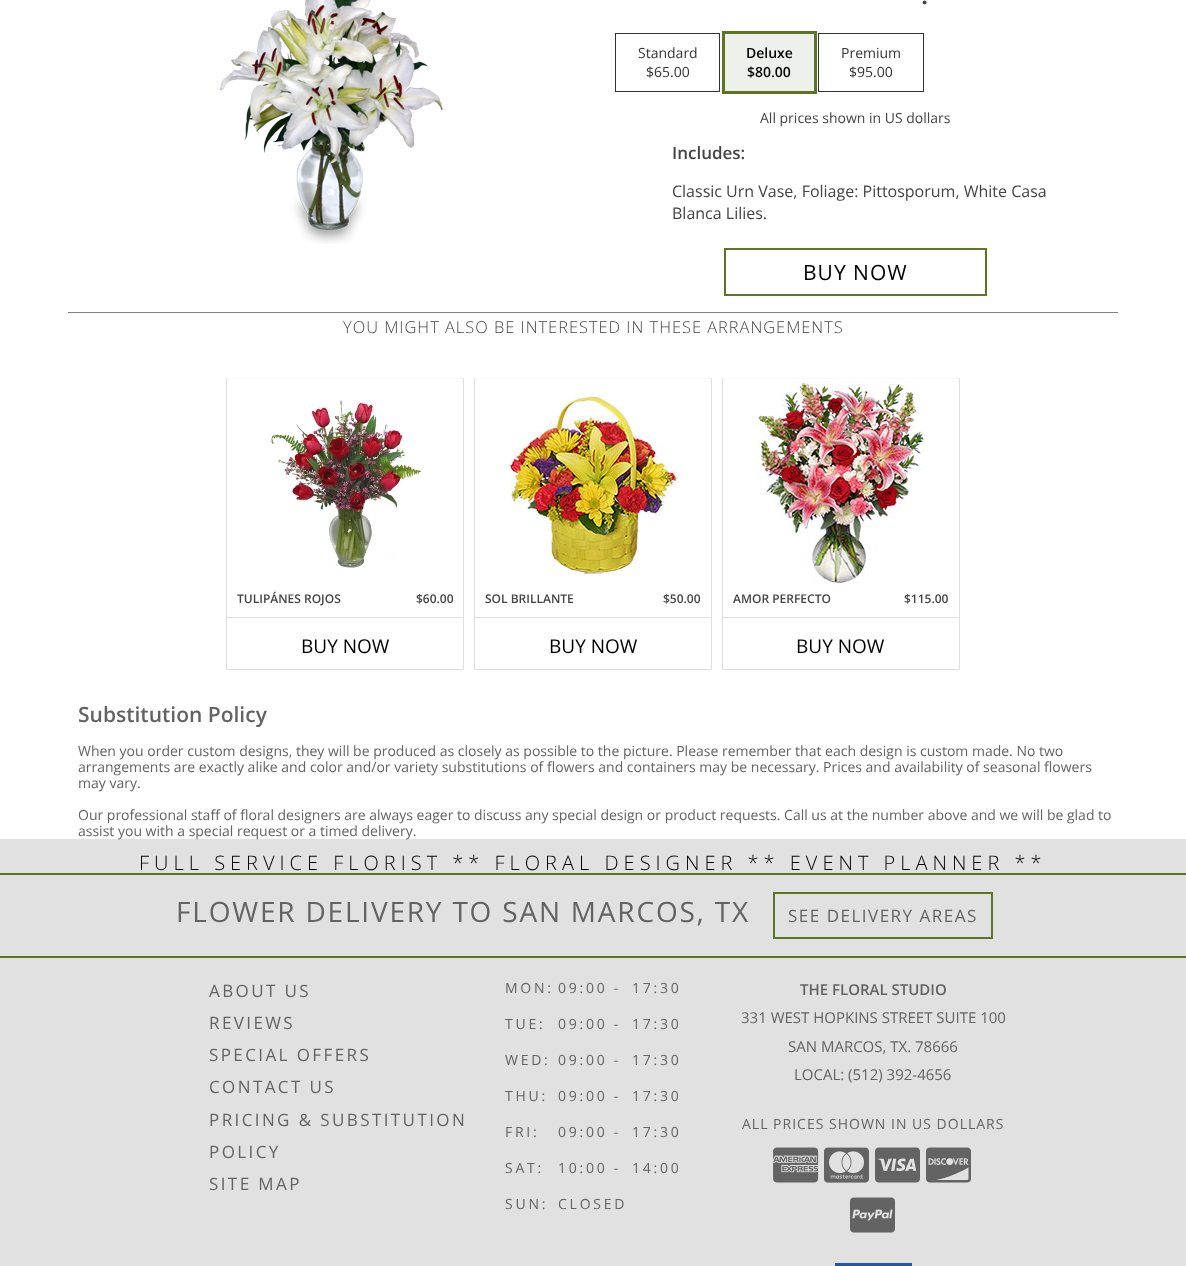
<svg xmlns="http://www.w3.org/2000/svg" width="1186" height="1266">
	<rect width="100%" height="100%" fill="#FFFFFF" />
	<image x="220" y="0" width="223" height="244" href="assets/img1.png" />
	<text x="921" y="4" font-family="Open Sans" font-size="26" font-weight="600" fill="#444444">.</text>
	<rect x="615.5" y="33.5" width="104" height="58" fill="none" stroke="#333333" />
	<g font-family="Open Sans" font-size="14" fill="#333333">
		<text x="638" y="58">Standard</text>
		<text x="646" y="77">$65.00</text>
	</g>
	<rect x="723.5" y="32.5" width="92" height="60" fill="none" stroke="#5B7524" stroke-width="3" />
	<rect x="725" y="34" width="89" height="57" fill="#EEF1E9" />
	<g font-family="Open Sans" font-size="14" font-weight="600" fill="#000000">
		<text x="746" y="58">Deluxe</text>
		<text x="747" y="77">$80.00</text>
	</g>
	<rect x="818.5" y="33.5" width="105" height="58" fill="none" stroke="#333333" />
	<g font-family="Open Sans" font-size="14" fill="#333333">
		<text x="841" y="58">Premium</text>
		<text x="849" y="77">$95.00</text>
	</g>
	<text x="760" y="123" font-family="Open Sans" font-size="14" fill="#444444">All prices shown in US dollars</text>
	<text x="672" y="159" font-family="Open Sans" font-size="17" font-weight="600" fill="#444444">Includes:</text>
	<g font-family="Open Sans" font-size="16" fill="#444444">
		<text x="672" y="197">Classic Urn Vase, Foliage: Pittosporum, White Casa</text>
		<text x="672" y="219">Blanca Lilies.</text>
	</g>
	<rect x="725" y="249" width="261" height="46" fill="none" stroke="#5B7524" stroke-width="2" />
	<text x="803" y="280" font-family="Open Sans" font-size="21" letter-spacing="1" fill="#000000">BUY NOW</text>
	<rect x="68" y="312" width="1050" height="1" fill="#808080" />
	<text x="343" y="333" font-family="Open Sans" font-size="16.4" font-weight="300" letter-spacing="1" fill="#444444">YOU MIGHT ALSO BE INTERESTED IN THESE ARRANGEMENTS</text>
	<rect x="226" y="378" width="238" height="1" fill="#F9F9F9" />
	<rect x="463" y="378" width="1" height="292" fill="#E2DEDD" />
	<rect x="226" y="669" width="238" height="1" fill="#E2DEDD" />
	<rect x="226" y="378" width="1" height="292" fill="#E2DEDD" />
	<image x="270" y="400" width="152" height="170" href="assets/img2.png" />
	<g font-family="Open Sans" font-size="12" font-weight="600" fill="#444444">
		<text x="237" y="603">TULIPÁNES ROJOS</text>
		<text x="416" y="603">$60.00</text>
	</g>
	<rect x="227" y="617" width="236" height="1" fill="#E2DEDD" />
	<text x="301" y="653" font-family="Open Sans" font-size="19" fill="#000000">BUY NOW</text>
	<rect x="474" y="378" width="238" height="1" fill="#F9F9F9" />
	<rect x="711" y="378" width="1" height="292" fill="#E2DEDD" />
	<rect x="474" y="669" width="238" height="1" fill="#E2DEDD" />
	<rect x="474" y="378" width="1" height="292" fill="#E2DEDD" />
	<image x="510" y="391" width="167" height="184" href="assets/img3.png" />
	<g font-family="Open Sans" font-size="12" font-weight="600" fill="#444444">
		<text x="485" y="603">SOL BRILLANTE</text>
		<text x="663" y="603">$50.00</text>
	</g>
	<rect x="475" y="617" width="236" height="1" fill="#E2DEDD" />
	<text x="549" y="653" font-family="Open Sans" font-size="19" fill="#000000">BUY NOW</text>
	<rect x="722" y="378" width="238" height="1" fill="#F9F9F9" />
	<rect x="959" y="378" width="1" height="292" fill="#E2DEDD" />
	<rect x="722" y="669" width="238" height="1" fill="#E2DEDD" />
	<rect x="722" y="378" width="1" height="292" fill="#E2DEDD" />
	<image x="757" y="383" width="167" height="200" href="assets/img4.png" />
	<g font-family="Open Sans" font-size="12" font-weight="600" fill="#444444">
		<text x="733" y="603">AMOR PERFECTO</text>
		<text x="904" y="603">$115.00</text>
	</g>
	<rect x="723" y="617" width="236" height="1" fill="#E2DEDD" />
	<text x="796" y="653" font-family="Open Sans" font-size="19" fill="#000000">BUY NOW</text>
	<text x="78" y="722" font-family="Open Sans" font-size="21" font-weight="600" fill="#636363">Substitution Policy</text>
	<g font-family="Open Sans" font-size="14" fill="#636363">
		<text x="78" y="756">When you order custom designs, they will be produced as closely as possible to the picture. Please remember that each design is custom made. No two</text>
		<text x="78" y="772">arrangements are exactly alike and color and/or variety substitutions of flowers and containers may be necessary. Prices and availability of seasonal flowers</text>
		<text x="78" y="788">may vary.</text>
		<text x="78" y="820">Our professional staff of floral designers are always eager to discuss any special design or product requests. Call us at the number above and we will be glad to</text>
	</g>
	<rect x="0" y="839" width="1186" height="427" fill="#E1E1E1" />
	<text x="78" y="836" font-family="Open Sans" font-size="14" fill="#636363">assist you with a special request or a timed delivery.</text>
	<text x="139" y="870" font-family="Open Sans" font-size="20" font-weight="300" letter-spacing="5" fill="#000000">FULL SERVICE FLORIST ** FLORAL DESIGNER ** EVENT PLANNER **</text>
	<rect x="0" y="873" width="1186" height="2" fill="#5B7524" />
	<rect x="0" y="956" width="1186" height="2" fill="#5B7524" />
	<text x="176" y="922" font-family="Open Sans" font-size="28" letter-spacing="1.8" fill="#636363">FLOWER DELIVERY TO SAN MARCOS, TX</text>
	<rect x="774" y="893" width="218" height="45" fill="none" stroke="#5B7524" stroke-width="2" />
	<text x="788" y="922" font-family="Open Sans" font-size="17" letter-spacing="1.5" fill="#636363">SEE DELIVERY AREAS</text>
	<g font-family="Open Sans" font-size="17" letter-spacing="2.4" fill="#636363">
		<text x="209" y="997">ABOUT US</text>
		<text x="209" y="1029">REVIEWS</text>
		<text x="209" y="1061">SPECIAL OFFERS</text>
		<text x="209" y="1093">CONTACT US</text>
		<text x="209" y="1126">PRICING &amp; SUBSTITUTION</text>
		<text x="209" y="1158">POLICY</text>
		<text x="209" y="1190">SITE MAP</text>
	</g>
	<g font-family="Open Sans" font-size="14" letter-spacing="2.75" fill="#636363">
		<text x="505" y="993">MON:</text>
		<text x="558" y="993">09:00 -</text>
		<text x="632" y="993">17:30</text>
		<text x="505" y="1029">TUE:</text>
		<text x="558" y="1029">09:00 -</text>
		<text x="632" y="1029">17:30</text>
		<text x="505" y="1065">WED:</text>
		<text x="558" y="1065">09:00 -</text>
		<text x="632" y="1065">17:30</text>
		<text x="505" y="1101">THU:</text>
		<text x="558" y="1101">09:00 -</text>
		<text x="632" y="1101">17:30</text>
		<text x="505" y="1137">FRI:</text>
		<text x="558" y="1137">09:00 -</text>
		<text x="632" y="1137">17:30</text>
		<text x="505" y="1173">SAT:</text>
		<text x="558" y="1173">10:00 -</text>
		<text x="632" y="1173">14:00</text>
		<text x="505" y="1209">SUN:</text>
		<text x="558" y="1209">CLOSED</text>
	</g>
	<text x="800" y="995" font-family="Open Sans" font-size="15" font-weight="600" fill="#636363">THE FLORAL STUDIO</text>
	<g font-family="Open Sans" font-size="15" fill="#636363">
		<text x="741" y="1023">331 WEST HOPKINS STREET SUITE 100</text>
		<text x="788" y="1052">SAN MARCOS, TX. 78666</text>
		<text x="794" y="1080">LOCAL: (512) 392-4656</text>
	</g>
	<text x="742" y="1129" font-family="Open Sans" font-size="14" letter-spacing="1" fill="#636363">ALL PRICES SHOWN IN US DOLLARS</text>
	<image x="773" y="1147" width="46" height="36" href="assets/img5.png" />
	<image x="824" y="1147" width="45" height="36" href="assets/img6.png" />
	<image x="875" y="1147" width="45" height="36" href="assets/img7.png" />
	<image x="926" y="1147" width="45" height="36" href="assets/img8.png" />
	<image x="850" y="1197" width="45" height="36" href="assets/img9.png" />
	<rect x="835" y="1263" width="77" height="3" fill="#23569A" />
</svg>
